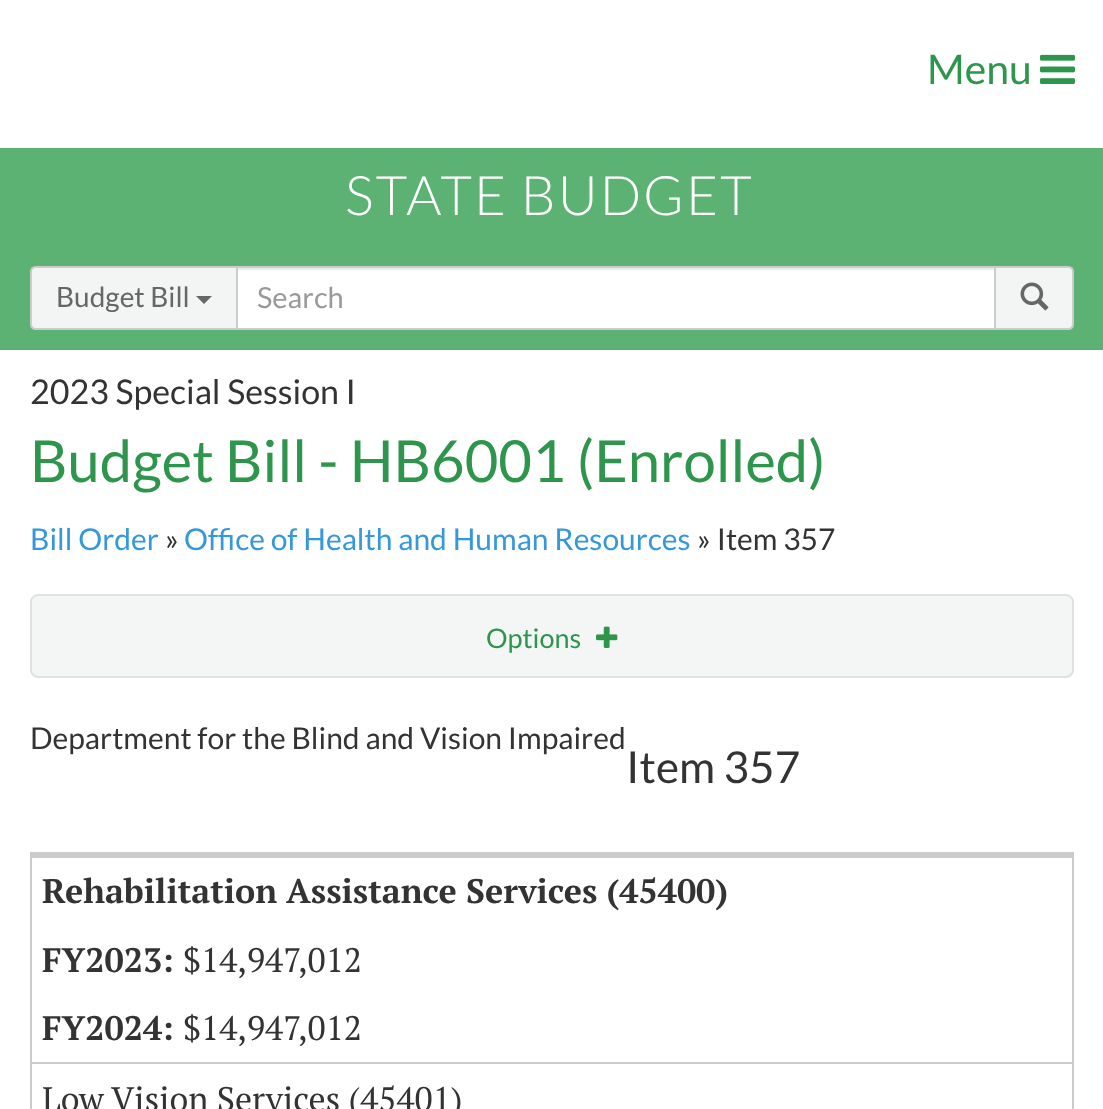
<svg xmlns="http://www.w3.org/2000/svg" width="1103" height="1109">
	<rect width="100%" height="100%" fill="#FFFFFF" />
	<text x="927" y="84" font-family="Lato" font-size="41" fill="#2E954C">Menu</text>
	<image x="1040" y="54" width="35" height="30" href="assets/img1.png" />
	<rect x="0" y="148" width="1103" height="202" fill="#5BB272" />
	<text x="345" y="215" font-family="Lato" font-size="54.5" font-weight="300" letter-spacing="2" fill="#FFFFFF">STATE BUDGET</text>
	<rect x="238" y="270" width="756" height="58" fill="#FFFFFF" />
	<rect x="238" y="268" width="756" height="2" fill="#ECECEC" />
	<rect x="237" y="267" width="758" height="62" fill="none" stroke="#CCCCCC" stroke-width="2" />
	<path d="M36 267H237V329H36C33 329 31 327 31 324V272C31 269 33 267 36 267Z" fill="#F3F5F5" stroke="#CCCCCC" stroke-width="2" />
	<text x="56" y="307" font-family="Lato" font-size="28" fill="#666666">Budget Bill</text>
	<path d="M196 296H212L204 304Z" fill="#666666" />
	<text x="257" y="308" font-family="Lato" font-size="29" fill="#999999">Search</text>
	<path d="M995 267H1068C1071 267 1073 269 1073 272V324C1073 327 1071 329 1068 329H995Z" fill="#F3F5F5" stroke="#CCCCCC" stroke-width="2" />
	<image x="1020" y="282" width="29" height="29" href="assets/img2.png" />
	<text x="30" y="404" font-family="Lato" font-size="34" fill="#333333">2023 Special Session I</text>
	<text x="30" y="482" font-family="Lato" font-size="58" fill="#2E954C">Budget Bill - HB6001 (Enrolled)</text>
	<text x="30" y="550" font-family="Lato" font-size="30" fill="#3498DB">Bill Order</text>
	<text x="165" y="550" font-family="Lato" font-size="30" fill="#333333">»</text>
	<text x="184" y="550" font-family="Lato" font-size="30" fill="#3498DB">Office of Health and Human Resources</text>
	<text x="697" y="550" font-family="Lato" font-size="30" fill="#333333">» Item 357</text>
	<rect x="31" y="595" width="1042" height="82" rx="7" fill="#F4F5F5" stroke="#DEE2E3" stroke-width="2" />
	<text x="486" y="648" font-family="Lato" font-size="27" fill="#2E954C">Options</text>
	<image x="596" y="626" width="22" height="22" href="assets/img3.png" />
	<text x="30" y="749" font-family="Lato" font-size="30" fill="#333333">Department for the Blind and Vision Impaired</text>
	<text x="626" y="783" font-family="Lato" font-size="44" fill="#333333">Item 357</text>
	<rect x="30" y="852" width="1044" height="2" fill="#CCCCCC" />
	<rect x="1072" y="852" width="2" height="257" fill="#CCCCCC" />
	<rect x="30" y="852" width="2" height="257" fill="#CCCCCC" />
	<rect x="32" y="854" width="1040" height="4" fill="#CCCCCC" />
	<rect x="32" y="1062" width="1040" height="2" fill="#CCCCCC" />
	<g font-family="PT Serif" font-size="34" font-weight="700" fill="#333333">
		<text x="42" y="903">Rehabilitation Assistance Services (45400)</text>
		<text x="42" y="972">FY2023:</text>
	</g>
	<text x="183" y="972" font-family="PT Serif" font-size="34" fill="#333333">$14,947,012</text>
	<text x="42" y="1040" font-family="PT Serif" font-size="34" font-weight="700" fill="#333333">FY2024:</text>
	<g font-family="PT Serif" font-size="34" fill="#333333">
		<text x="183" y="1040">$14,947,012</text>
		<text x="42" y="1111">Low Vision Services (45401)</text>
	</g>
</svg>
